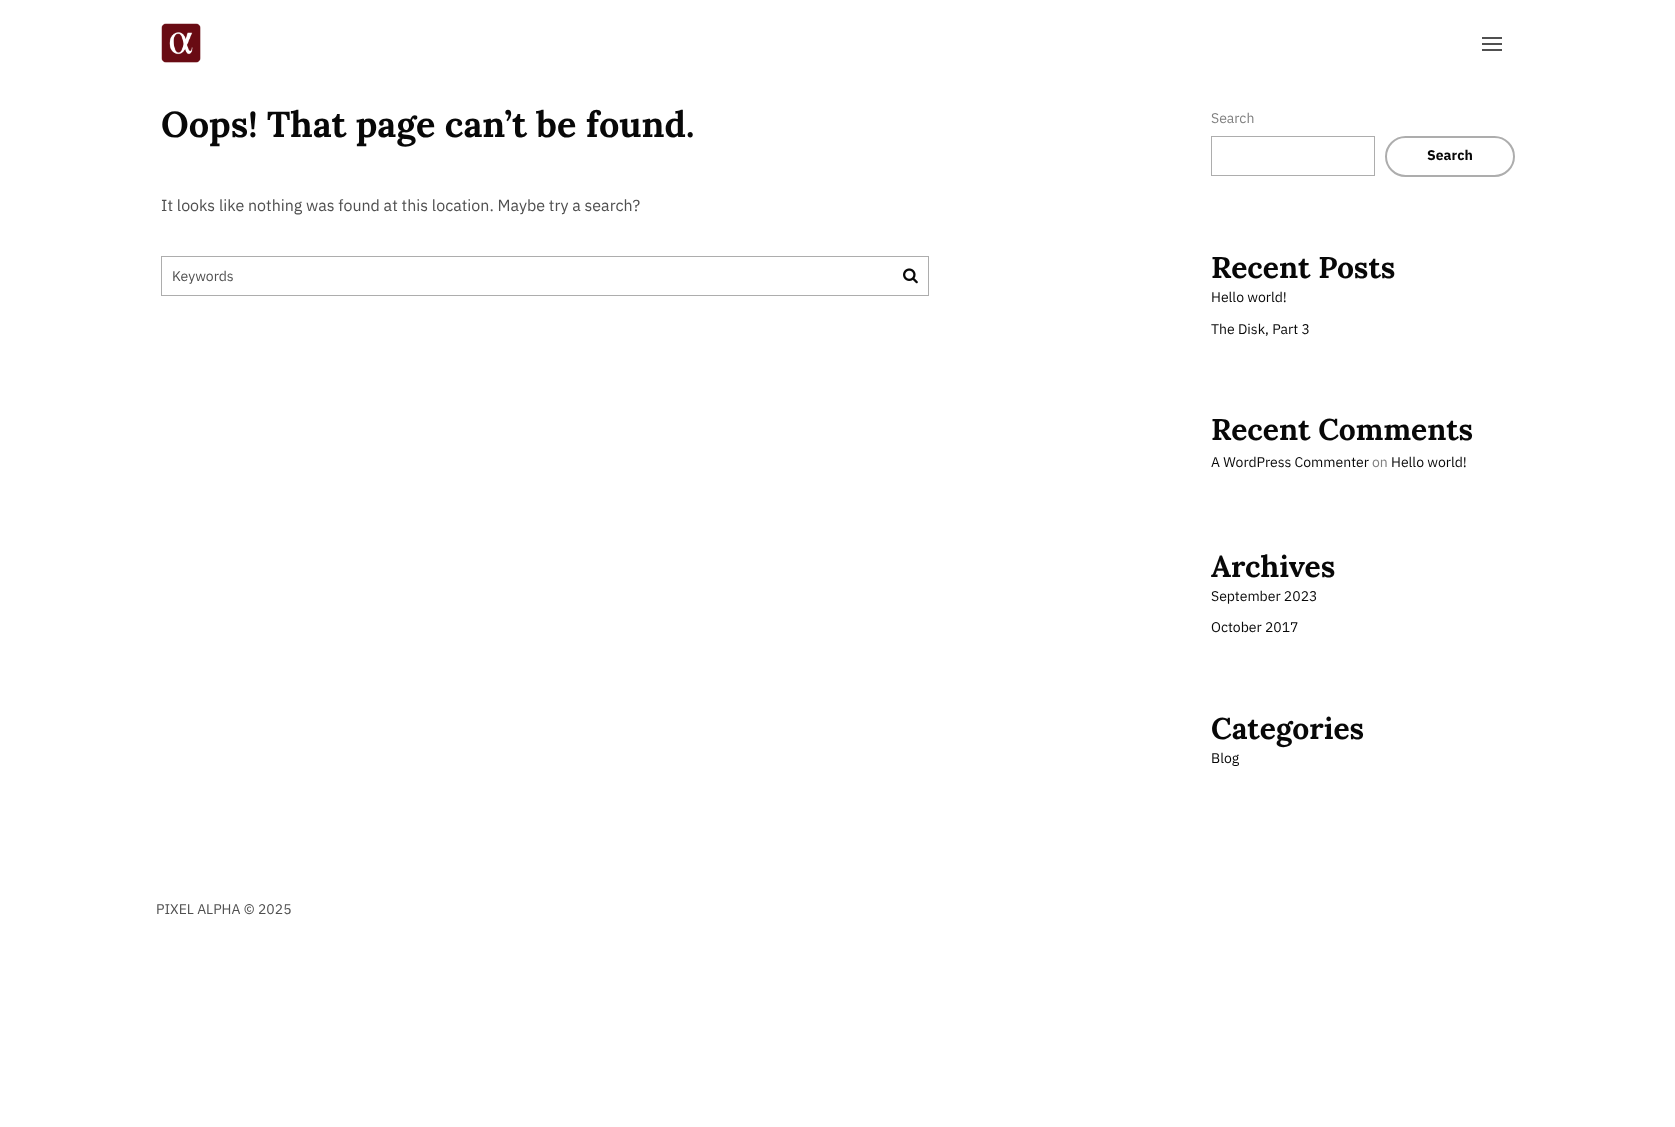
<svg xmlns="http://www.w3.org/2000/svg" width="1675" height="1127">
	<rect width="100%" height="100%" fill="#FFFFFF" />
	<image x="161" y="23" width="40" height="40" href="assets/img1.png" />
	<rect x="1482" y="37" width="20" height="2" fill="#505050" />
	<rect x="1482" y="43" width="20" height="2" fill="#505050" />
	<rect x="1482" y="49" width="20" height="2" fill="#505050" />
	<text x="161" y="137" font-family="Lora" font-size="36" font-weight="700" fill="#080808">Oops! That page can’t be found.</text>
	<text x="161" y="211" font-family="IBM Plex Sans" font-size="16" fill="#505050">It looks like nothing was found at this location. Maybe try a search?</text>
	<rect x="161.5" y="256.5" width="767" height="39" fill="none" stroke="#ADADAD" />
	<text x="172" y="281" font-family="IBM Plex Sans" font-size="14" fill="#505050">Keywords</text>
	<image x="903" y="268" width="15" height="16" href="assets/img2.png" />
	<text x="1211" y="123" font-family="IBM Plex Sans" font-size="14" fill="#808080">Search</text>
	<rect x="1211.5" y="136.5" width="163" height="39" fill="none" stroke="#ADADAD" />
	<rect x="1386" y="137" width="128" height="39" rx="19.5" fill="none" stroke="#ADADAD" stroke-width="2" />
	<text x="1427" y="160" font-family="IBM Plex Sans" font-size="14" font-weight="700" fill="#080808">Search</text>
	<text x="1211" y="278" font-family="Lora" font-size="30" font-weight="700" fill="#080808">Recent Posts</text>
	<g font-family="IBM Plex Sans" font-size="14" fill="#080808">
		<text x="1211" y="302">Hello world!</text>
		<text x="1211" y="334">The Disk, Part 3</text>
	</g>
	<text x="1211" y="440" font-family="Lora" font-size="30" font-weight="700" fill="#080808">Recent Comments</text>
	<text x="1211" y="467" font-family="IBM Plex Sans" font-size="14" fill="#080808">A WordPress Commenter</text>
	<text x="1372" y="467" font-family="IBM Plex Sans" font-size="14" fill="#808080">on</text>
	<text x="1391" y="467" font-family="IBM Plex Sans" font-size="14" fill="#080808">Hello world!</text>
	<text x="1211" y="577" font-family="Lora" font-size="30" font-weight="700" fill="#080808">Archives</text>
	<g font-family="IBM Plex Sans" font-size="14" fill="#080808">
		<text x="1211" y="601">September 2023</text>
		<text x="1211" y="632">October 2017</text>
	</g>
	<text x="1211" y="739" font-family="Lora" font-size="30" font-weight="700" fill="#080808">Categories</text>
	<text x="1211" y="763" font-family="IBM Plex Sans" font-size="14" fill="#080808">Blog</text>
	<text x="156" y="914" font-family="IBM Plex Sans" font-size="14" fill="#505050">PIXEL ALPHA © 2025</text>
</svg>
